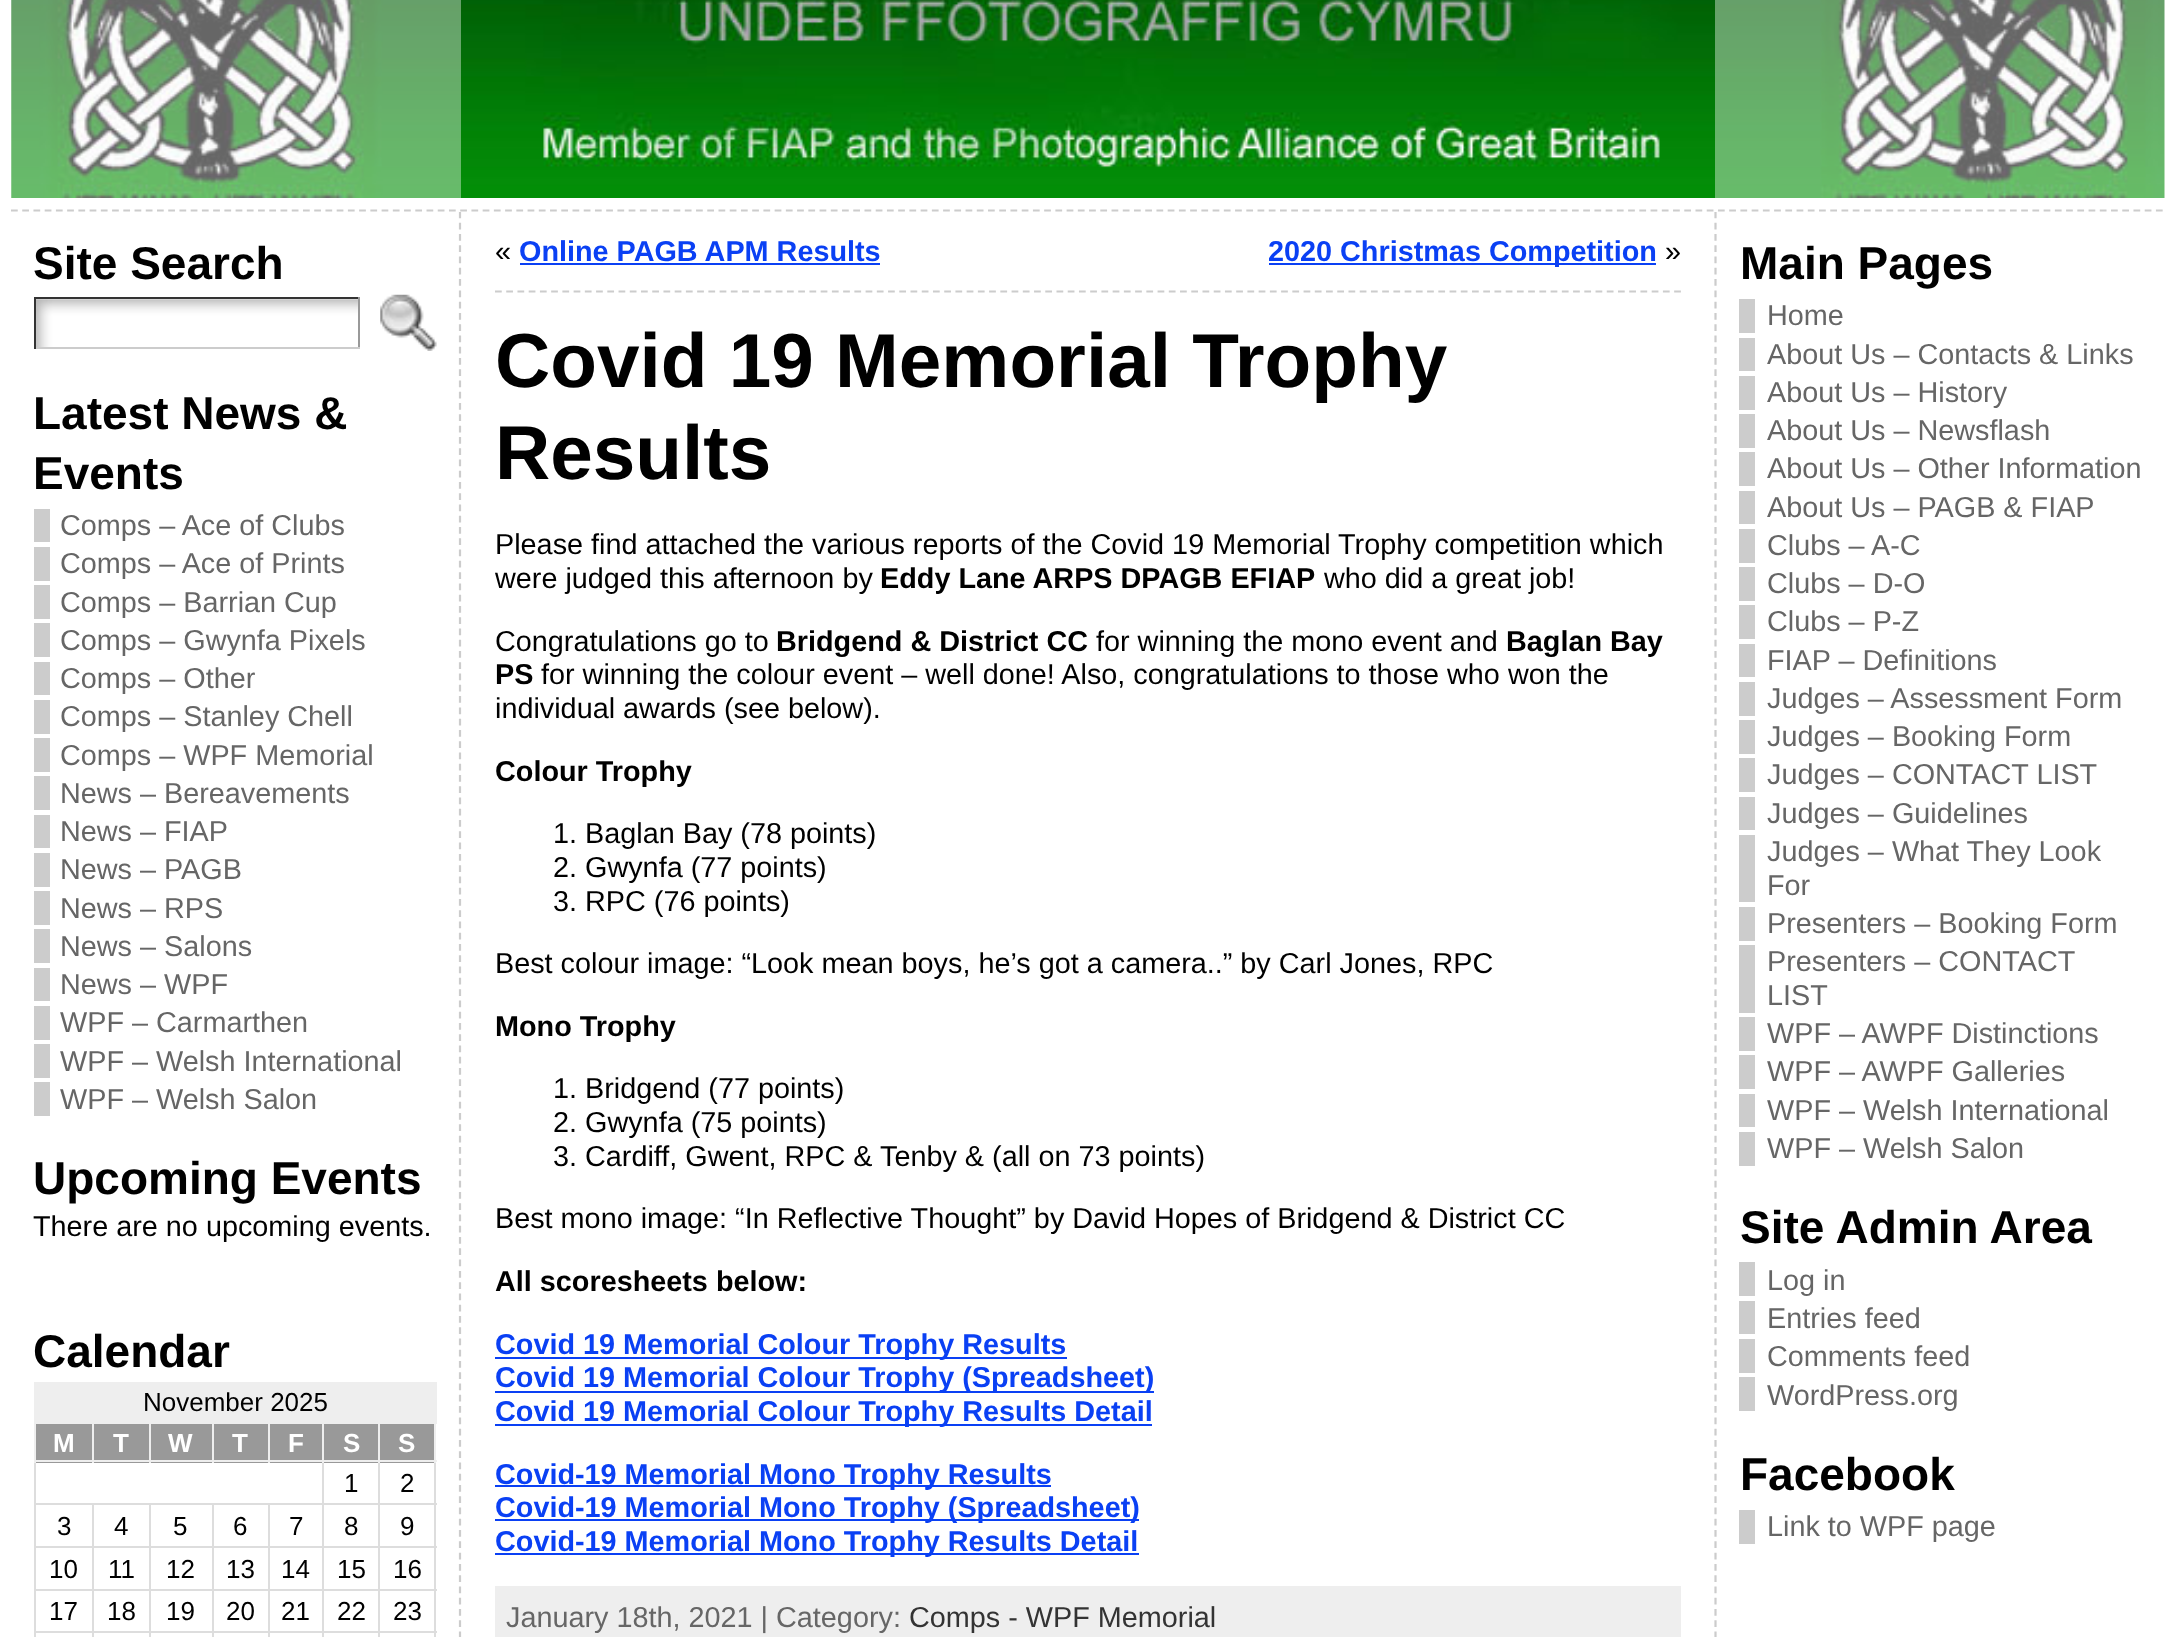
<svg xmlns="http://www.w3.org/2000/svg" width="2175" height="1637">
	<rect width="100%" height="100%" fill="#FFFFFF" />
	<image x="11" y="0" width="2154" height="198" href="assets/img1.png" />
	<rect x="11" y="0" width="450" height="198" fill="#FFFFFF" fill-opacity="0.4" />
	<rect x="1715" y="0" width="450" height="198" fill="#FFFFFF" fill-opacity="0.4" />
	<path d="M460 211.5V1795.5" fill="none" stroke="#CCCCCC" stroke-width="2.2" stroke-dasharray="6.75 4.52" />
	<path d="M1715.5 211.5V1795.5" fill="none" stroke="#CCCCCC" stroke-width="2.2" stroke-dasharray="6.75 4.52" />
	<rect x="459" y="211" width="1258" height="1" fill="#FFFFFF" />
	<path d="M11 210.5H2164.5" fill="none" stroke="#CCCCCC" stroke-width="2.2" stroke-dasharray="6.75 4.48" />
	<text x="33" y="279" font-family="Liberation Sans" font-size="46" font-weight="700" fill="#000000">Site Search</text>
	<image x="36" y="299" width="322" height="48" href="assets/img2.png" />
	<rect x="34" y="297" width="326" height="2" fill="#333333" />
	<rect x="358" y="297" width="2" height="52" fill="#999999" />
	<rect x="34" y="347" width="326" height="2" fill="#CCCCCC" />
	<rect x="34" y="297" width="2" height="52" fill="#333333" />
	<image x="380" y="294" width="57" height="57" href="assets/img3.png" />
	<g font-family="Liberation Sans" font-size="46" font-weight="700" fill="#000000">
		<text x="33" y="429">Latest News &amp;</text>
		<text x="33" y="489">Events</text>
	</g>
	<text x="60" y="535" font-family="Liberation Sans" font-size="28.8" fill="#666666">Comps – Ace of Clubs</text>
	<rect x="34" y="509" width="16" height="33" fill="#CCCCCC" />
	<text x="60" y="573" font-family="Liberation Sans" font-size="28.8" fill="#666666">Comps – Ace of Prints</text>
	<rect x="34" y="547" width="16" height="34" fill="#CCCCCC" />
	<text x="60" y="612" font-family="Liberation Sans" font-size="28.8" fill="#666666">Comps – Barrian Cup</text>
	<rect x="34" y="585" width="16" height="34" fill="#CCCCCC" />
	<text x="60" y="650" font-family="Liberation Sans" font-size="28.8" fill="#666666">Comps – Gwynfa Pixels</text>
	<rect x="34" y="623" width="16" height="34" fill="#CCCCCC" />
	<text x="60" y="688" font-family="Liberation Sans" font-size="28.8" fill="#666666">Comps – Other</text>
	<rect x="34" y="662" width="16" height="33" fill="#CCCCCC" />
	<text x="60" y="726" font-family="Liberation Sans" font-size="28.8" fill="#666666">Comps – Stanley Chell</text>
	<rect x="34" y="700" width="16" height="34" fill="#CCCCCC" />
	<text x="60" y="765" font-family="Liberation Sans" font-size="28.8" fill="#666666">Comps – WPF Memorial</text>
	<rect x="34" y="738" width="16" height="34" fill="#CCCCCC" />
	<text x="60" y="803" font-family="Liberation Sans" font-size="28.8" fill="#666666">News – Bereavements</text>
	<rect x="34" y="776" width="16" height="34" fill="#CCCCCC" />
	<text x="60" y="841" font-family="Liberation Sans" font-size="28.8" fill="#666666">News – FIAP</text>
	<rect x="34" y="815" width="16" height="33" fill="#CCCCCC" />
	<text x="60" y="879" font-family="Liberation Sans" font-size="28.8" fill="#666666">News – PAGB</text>
	<rect x="34" y="853" width="16" height="34" fill="#CCCCCC" />
	<text x="60" y="918" font-family="Liberation Sans" font-size="28.8" fill="#666666">News – RPS</text>
	<rect x="34" y="891" width="16" height="34" fill="#CCCCCC" />
	<text x="60" y="956" font-family="Liberation Sans" font-size="28.8" fill="#666666">News – Salons</text>
	<rect x="34" y="929" width="16" height="34" fill="#CCCCCC" />
	<text x="60" y="994" font-family="Liberation Sans" font-size="28.8" fill="#666666">News – WPF</text>
	<rect x="34" y="968" width="16" height="33" fill="#CCCCCC" />
	<text x="60" y="1032" font-family="Liberation Sans" font-size="28.8" fill="#666666">WPF – Carmarthen</text>
	<rect x="34" y="1006" width="16" height="34" fill="#CCCCCC" />
	<text x="60" y="1071" font-family="Liberation Sans" font-size="28.8" fill="#666666">WPF – Welsh International</text>
	<rect x="34" y="1044" width="16" height="34" fill="#CCCCCC" />
	<text x="60" y="1109" font-family="Liberation Sans" font-size="28.8" fill="#666666">WPF – Welsh Salon</text>
	<rect x="34" y="1082" width="16" height="34" fill="#CCCCCC" />
	<text x="33" y="1194" font-family="Liberation Sans" font-size="46" font-weight="700" fill="#000000">Upcoming Events</text>
	<text x="33" y="1236" font-family="Liberation Sans" font-size="28.8" fill="#000000">There are no upcoming events.</text>
	<text x="33" y="1367" font-family="Liberation Sans" font-size="46" font-weight="700" fill="#000000">Calendar</text>
	<rect x="34" y="1382" width="403" height="40" fill="#EEEEEE" />
	<text x="143" y="1411" font-family="Liberation Sans" font-size="26" fill="#000000">November 2025</text>
	<rect x="36" y="1424" width="56" height="39" fill="#999999" />
	<rect x="378" y="1422" width="59" height="2" fill="#EEEEEE" />
	<rect x="380" y="1424" width="54" height="39" fill="#999999" />
	<rect x="378" y="1503" width="59" height="2" fill="#DDDDDD" />
	<rect x="378" y="1546" width="59" height="2" fill="#DDDDDD" />
	<rect x="378" y="1589" width="59" height="2" fill="#DDDDDD" />
	<rect x="378" y="1631" width="59" height="2" fill="#DDDDDD" />
	<rect x="434" y="1631" width="2" height="6" fill="#DDDDDD" />
	<rect x="434" y="1589" width="2" height="45" fill="#DDDDDD" />
	<rect x="434" y="1546" width="2" height="45" fill="#DDDDDD" />
	<rect x="434" y="1460" width="2" height="88" fill="#DDDDDD" />
	<rect x="434" y="1422" width="2" height="41" fill="#EEEEEE" />
	<rect x="378" y="1631" width="2" height="6" fill="#DDDDDD" />
	<rect x="322" y="1631" width="58" height="2" fill="#DDDDDD" />
	<rect x="378" y="1589" width="2" height="45" fill="#DDDDDD" />
	<rect x="322" y="1589" width="58" height="2" fill="#DDDDDD" />
	<rect x="378" y="1546" width="2" height="45" fill="#DDDDDD" />
	<rect x="322" y="1546" width="58" height="2" fill="#DDDDDD" />
	<rect x="378" y="1503" width="2" height="45" fill="#DDDDDD" />
	<rect x="322" y="1503" width="58" height="2" fill="#DDDDDD" />
	<rect x="378" y="1460" width="2" height="45" fill="#DDDDDD" />
	<rect x="378" y="1460" width="59" height="2" fill="#EEEEEE" />
	<rect x="378" y="1422" width="2" height="41" fill="#EEEEEE" />
	<rect x="322" y="1422" width="58" height="2" fill="#EEEEEE" />
	<rect x="324" y="1424" width="54" height="39" fill="#999999" />
	<rect x="322" y="1631" width="2" height="6" fill="#DDDDDD" />
	<rect x="268" y="1631" width="56" height="2" fill="#DDDDDD" />
	<rect x="322" y="1589" width="2" height="45" fill="#DDDDDD" />
	<rect x="268" y="1589" width="56" height="2" fill="#DDDDDD" />
	<rect x="322" y="1546" width="2" height="45" fill="#DDDDDD" />
	<rect x="268" y="1546" width="56" height="2" fill="#DDDDDD" />
	<rect x="322" y="1503" width="2" height="45" fill="#DDDDDD" />
	<rect x="268" y="1503" width="56" height="2" fill="#DDDDDD" />
	<rect x="322" y="1460" width="2" height="45" fill="#DDDDDD" />
	<rect x="322" y="1460" width="58" height="2" fill="#EEEEEE" />
	<rect x="322" y="1422" width="2" height="41" fill="#EEEEEE" />
	<rect x="268" y="1422" width="56" height="2" fill="#EEEEEE" />
	<rect x="270" y="1424" width="52" height="39" fill="#999999" />
	<rect x="268" y="1460" width="56" height="2" fill="#EEEEEE" />
	<rect x="268" y="1422" width="2" height="41" fill="#EEEEEE" />
	<rect x="212" y="1422" width="58" height="2" fill="#EEEEEE" />
	<rect x="214" y="1424" width="54" height="39" fill="#999999" />
	<rect x="212" y="1460" width="58" height="2" fill="#EEEEEE" />
	<rect x="212" y="1422" width="2" height="41" fill="#EEEEEE" />
	<rect x="149" y="1422" width="65" height="2" fill="#EEEEEE" />
	<rect x="151" y="1424" width="61" height="39" fill="#999999" />
	<rect x="149" y="1460" width="65" height="2" fill="#EEEEEE" />
	<rect x="149" y="1422" width="2" height="41" fill="#EEEEEE" />
	<rect x="92" y="1422" width="59" height="2" fill="#EEEEEE" />
	<rect x="94" y="1424" width="55" height="39" fill="#999999" />
	<rect x="92" y="1460" width="59" height="2" fill="#EEEEEE" />
	<rect x="92" y="1422" width="2" height="41" fill="#EEEEEE" />
	<rect x="34" y="1422" width="61" height="2" fill="#EEEEEE" />
	<rect x="268" y="1631" width="2" height="6" fill="#DDDDDD" />
	<rect x="212" y="1631" width="58" height="2" fill="#DDDDDD" />
	<rect x="268" y="1589" width="2" height="45" fill="#DDDDDD" />
	<rect x="212" y="1589" width="58" height="2" fill="#DDDDDD" />
	<rect x="268" y="1546" width="2" height="45" fill="#DDDDDD" />
	<rect x="212" y="1546" width="58" height="2" fill="#DDDDDD" />
	<rect x="268" y="1503" width="2" height="45" fill="#DDDDDD" />
	<rect x="212" y="1503" width="58" height="2" fill="#DDDDDD" />
	<rect x="212" y="1631" width="2" height="6" fill="#DDDDDD" />
	<rect x="149" y="1631" width="65" height="2" fill="#DDDDDD" />
	<rect x="212" y="1589" width="2" height="45" fill="#DDDDDD" />
	<rect x="149" y="1589" width="65" height="2" fill="#DDDDDD" />
	<rect x="212" y="1546" width="2" height="45" fill="#DDDDDD" />
	<rect x="149" y="1546" width="65" height="2" fill="#DDDDDD" />
	<rect x="212" y="1503" width="2" height="45" fill="#DDDDDD" />
	<rect x="149" y="1503" width="65" height="2" fill="#DDDDDD" />
	<rect x="149" y="1631" width="2" height="6" fill="#DDDDDD" />
	<rect x="92" y="1631" width="59" height="2" fill="#DDDDDD" />
	<rect x="149" y="1589" width="2" height="45" fill="#DDDDDD" />
	<rect x="92" y="1589" width="59" height="2" fill="#DDDDDD" />
	<rect x="149" y="1546" width="2" height="45" fill="#DDDDDD" />
	<rect x="92" y="1546" width="59" height="2" fill="#DDDDDD" />
	<rect x="149" y="1503" width="2" height="45" fill="#DDDDDD" />
	<rect x="92" y="1503" width="59" height="2" fill="#DDDDDD" />
	<rect x="92" y="1631" width="2" height="6" fill="#DDDDDD" />
	<rect x="34" y="1631" width="61" height="2" fill="#DDDDDD" />
	<rect x="92" y="1589" width="2" height="45" fill="#DDDDDD" />
	<rect x="34" y="1589" width="61" height="2" fill="#DDDDDD" />
	<rect x="92" y="1546" width="2" height="45" fill="#DDDDDD" />
	<rect x="34" y="1546" width="61" height="2" fill="#DDDDDD" />
	<rect x="92" y="1503" width="2" height="45" fill="#DDDDDD" />
	<rect x="34" y="1503" width="61" height="2" fill="#DDDDDD" />
	<rect x="34" y="1631" width="2" height="6" fill="#DDDDDD" />
	<rect x="34" y="1589" width="2" height="45" fill="#DDDDDD" />
	<rect x="34" y="1546" width="2" height="45" fill="#DDDDDD" />
	<rect x="34" y="1460" width="2" height="88" fill="#DDDDDD" />
	<rect x="34" y="1460" width="61" height="2" fill="#EEEEEE" />
	<rect x="34" y="1422" width="2" height="41" fill="#EEEEEE" />
	<g font-family="Liberation Sans" font-size="26" font-weight="700" fill="#FFFFFF">
		<text x="53" y="1452">M</text>
		<text x="113" y="1452">T</text>
		<text x="168" y="1452">W</text>
		<text x="232" y="1452">T</text>
		<text x="288" y="1452">F</text>
		<text x="343" y="1452">S</text>
		<text x="398" y="1452">S</text>
	</g>
	<g font-family="Liberation Sans" font-size="26" fill="#000000">
		<text x="344" y="1492">1</text>
		<text x="400" y="1492">2</text>
		<text x="57" y="1535">3</text>
		<text x="114" y="1535">4</text>
		<text x="173" y="1535">5</text>
		<text x="233" y="1535">6</text>
		<text x="289" y="1535">7</text>
		<text x="344" y="1535">8</text>
		<text x="400" y="1535">9</text>
		<text x="49" y="1578">10</text>
		<text x="108" y="1578">11</text>
		<text x="166" y="1578">12</text>
		<text x="226" y="1578">13</text>
		<text x="281" y="1578">14</text>
		<text x="337" y="1578">15</text>
		<text x="393" y="1578">16</text>
		<text x="49" y="1620">17</text>
		<text x="107" y="1620">18</text>
		<text x="166" y="1620">19</text>
		<text x="226" y="1620">20</text>
		<text x="281" y="1620">21</text>
		<text x="337" y="1620">22</text>
		<text x="393" y="1620">23</text>
	</g>
	<path d="M495 291.5H1681" fill="none" stroke="#CCCCCC" stroke-width="2.2" stroke-dasharray="6.75 4.48" />
	<text x="495" y="261" font-family="Liberation Sans" font-size="28.8" fill="#000000">«</text>
	<text x="519" y="261" font-family="Liberation Sans" font-size="28.8" font-weight="700" fill="#0A40F4">Online PAGB APM Results</text>
	<rect x="520" y="263" width="360" height="2" fill="#0A40F4" />
	<rect x="1269" y="263" width="387" height="2" fill="#0A40F4" />
	<text x="1268" y="261" font-family="Liberation Sans" font-size="28.8" font-weight="700" fill="#0A40F4">2020 Christmas Competition</text>
	<text x="1665" y="261" font-family="Liberation Sans" font-size="28.8" fill="#000000">»</text>
	<g font-family="Liberation Sans" font-size="76.5" font-weight="700" fill="#000000">
		<text x="495" y="387">Covid 19 Memorial Trophy</text>
		<text x="495" y="479">Results</text>
	</g>
	<g font-family="Liberation Sans" font-size="28.8" fill="#000000">
		<text x="495" y="554">Please find attached the various reports of the Covid 19 Memorial Trophy competition which</text>
		<text x="495" y="588">were judged this afternoon by</text>
	</g>
	<text x="880" y="588" font-family="Liberation Sans" font-size="28.8" font-weight="700" fill="#000000">Eddy Lane ARPS DPAGB EFIAP</text>
	<g font-family="Liberation Sans" font-size="28.8" fill="#000000">
		<text x="1324" y="588">who did a great job!</text>
		<text x="495" y="651">Congratulations go to</text>
	</g>
	<text x="776" y="651" font-family="Liberation Sans" font-size="28.8" font-weight="700" fill="#000000">Bridgend &amp; District CC</text>
	<text x="1096" y="651" font-family="Liberation Sans" font-size="28.8" fill="#000000">for winning the mono event and</text>
	<g font-family="Liberation Sans" font-size="28.8" font-weight="700" fill="#000000">
		<text x="1506" y="651">Baglan Bay</text>
		<text x="495" y="684">PS</text>
	</g>
	<g font-family="Liberation Sans" font-size="28.8" fill="#000000">
		<text x="541" y="684">for winning the colour event – well done! Also, congratulations to those who won the</text>
		<text x="495" y="718">individual awards (see below).</text>
	</g>
	<text x="495" y="781" font-family="Liberation Sans" font-size="28.8" font-weight="700" fill="#000000">Colour Trophy</text>
	<g font-family="Liberation Sans" font-size="28.8" fill="#000000">
		<text x="553" y="843">1. Baglan Bay (78 points)</text>
		<text x="553" y="877">2. Gwynfa (77 points)</text>
		<text x="553" y="911">3. RPC (76 points)</text>
		<text x="495" y="973">Best colour image: “Look mean boys, he’s got a camera..” by Carl Jones, RPC</text>
	</g>
	<text x="495" y="1036" font-family="Liberation Sans" font-size="28.8" font-weight="700" fill="#000000">Mono Trophy</text>
	<g font-family="Liberation Sans" font-size="28.8" fill="#000000">
		<text x="553" y="1098">1. Bridgend (77 points)</text>
		<text x="553" y="1132">2. Gwynfa (75 points)</text>
		<text x="553" y="1166">3. Cardiff, Gwent, RPC &amp; Tenby &amp; (all on 73 points)</text>
		<text x="495" y="1228">Best mono image: “In Reflective Thought” by David Hopes of Bridgend &amp; District CC</text>
	</g>
	<text x="495" y="1291" font-family="Liberation Sans" font-size="28.8" font-weight="700" fill="#000000">All scoresheets below:</text>
	<rect x="495" y="1357" width="572" height="2" fill="#0A40F4" />
	<text x="495" y="1354" font-family="Liberation Sans" font-size="28.8" font-weight="700" fill="#0A40F4">Covid 19 Memorial Colour Trophy Results</text>
	<rect x="495" y="1391" width="659" height="2" fill="#0A40F4" />
	<text x="495" y="1387" font-family="Liberation Sans" font-size="28.8" font-weight="700" fill="#0A40F4">Covid 19 Memorial Colour Trophy (Spreadsheet)</text>
	<rect x="495" y="1424" width="657" height="2" fill="#0A40F4" />
	<text x="495" y="1421" font-family="Liberation Sans" font-size="28.8" font-weight="700" fill="#0A40F4">Covid 19 Memorial Colour Trophy Results Detail</text>
	<rect x="495" y="1485" width="556" height="2" fill="#0A40F4" />
	<text x="495" y="1484" font-family="Liberation Sans" font-size="28.8" font-weight="700" fill="#0A40F4">Covid-19 Memorial Mono Trophy Results</text>
	<rect x="495" y="1519" width="644" height="2" fill="#0A40F4" />
	<text x="495" y="1517" font-family="Liberation Sans" font-size="28.8" font-weight="700" fill="#0A40F4">Covid-19 Memorial Mono Trophy (Spreadsheet)</text>
	<rect x="495" y="1553" width="644" height="2" fill="#0A40F4" />
	<text x="495" y="1551" font-family="Liberation Sans" font-size="28.8" font-weight="700" fill="#0A40F4">Covid-19 Memorial Mono Trophy Results Detail</text>
	<rect x="495" y="1586" width="1186" height="51" fill="#EEEEEE" />
	<text x="506" y="1627" font-family="Liberation Sans" font-size="28.8" fill="#666666">January 18th, 2021 | Category:</text>
	<text x="909" y="1627" font-family="Liberation Sans" font-size="28.8" fill="#333333">Comps - WPF Memorial</text>
	<text x="1740" y="279" font-family="Liberation Sans" font-size="46" font-weight="700" fill="#000000">Main Pages</text>
	<rect x="1739" y="299" width="16" height="34" fill="#CCCCCC" />
	<text x="1767" y="325" font-family="Liberation Sans" font-size="28.8" fill="#666666">Home</text>
	<rect x="1739" y="338" width="16" height="33" fill="#CCCCCC" />
	<text x="1767" y="364" font-family="Liberation Sans" font-size="28.8" fill="#666666">About Us – Contacts &amp; Links</text>
	<rect x="1739" y="376" width="16" height="34" fill="#CCCCCC" />
	<text x="1767" y="402" font-family="Liberation Sans" font-size="28.8" fill="#666666">About Us – History</text>
	<rect x="1739" y="414" width="16" height="34" fill="#CCCCCC" />
	<text x="1767" y="440" font-family="Liberation Sans" font-size="28.8" fill="#666666">About Us – Newsflash</text>
	<rect x="1739" y="452" width="16" height="34" fill="#CCCCCC" />
	<text x="1767" y="478" font-family="Liberation Sans" font-size="28.8" fill="#666666">About Us – Other Information</text>
	<rect x="1739" y="491" width="16" height="33" fill="#CCCCCC" />
	<text x="1767" y="517" font-family="Liberation Sans" font-size="28.8" fill="#666666">About Us – PAGB &amp; FIAP</text>
	<rect x="1739" y="529" width="16" height="34" fill="#CCCCCC" />
	<text x="1767" y="555" font-family="Liberation Sans" font-size="28.8" fill="#666666">Clubs – A-C</text>
	<rect x="1739" y="567" width="16" height="34" fill="#CCCCCC" />
	<text x="1767" y="593" font-family="Liberation Sans" font-size="28.8" fill="#666666">Clubs – D-O</text>
	<rect x="1739" y="605" width="16" height="34" fill="#CCCCCC" />
	<text x="1767" y="631" font-family="Liberation Sans" font-size="28.8" fill="#666666">Clubs – P-Z</text>
	<rect x="1739" y="644" width="16" height="33" fill="#CCCCCC" />
	<text x="1767" y="670" font-family="Liberation Sans" font-size="28.8" fill="#666666">FIAP – Definitions</text>
	<rect x="1739" y="682" width="16" height="34" fill="#CCCCCC" />
	<text x="1767" y="708" font-family="Liberation Sans" font-size="28.8" fill="#666666">Judges – Assessment Form</text>
	<rect x="1739" y="720" width="16" height="34" fill="#CCCCCC" />
	<text x="1767" y="746" font-family="Liberation Sans" font-size="28.8" fill="#666666">Judges – Booking Form</text>
	<rect x="1739" y="758" width="16" height="34" fill="#CCCCCC" />
	<text x="1767" y="784" font-family="Liberation Sans" font-size="28.8" fill="#666666">Judges – CONTACT LIST</text>
	<rect x="1739" y="797" width="16" height="33" fill="#CCCCCC" />
	<text x="1767" y="823" font-family="Liberation Sans" font-size="28.8" fill="#666666">Judges – Guidelines</text>
	<rect x="1739" y="835" width="16" height="67" fill="#CCCCCC" />
	<g font-family="Liberation Sans" font-size="28.8" fill="#666666">
		<text x="1767" y="861">Judges – What They Look</text>
		<text x="1767" y="895">For</text>
	</g>
	<rect x="1739" y="907" width="16" height="34" fill="#CCCCCC" />
	<text x="1767" y="933" font-family="Liberation Sans" font-size="28.8" fill="#666666">Presenters – Booking Form</text>
	<rect x="1739" y="945" width="16" height="68" fill="#CCCCCC" />
	<g font-family="Liberation Sans" font-size="28.8" fill="#666666">
		<text x="1767" y="971">Presenters – CONTACT</text>
		<text x="1767" y="1005">LIST</text>
	</g>
	<rect x="1739" y="1017" width="16" height="34" fill="#CCCCCC" />
	<text x="1767" y="1043" font-family="Liberation Sans" font-size="28.8" fill="#666666">WPF – AWPF Distinctions</text>
	<rect x="1739" y="1055" width="16" height="34" fill="#CCCCCC" />
	<text x="1767" y="1081" font-family="Liberation Sans" font-size="28.8" fill="#666666">WPF – AWPF Galleries</text>
	<rect x="1739" y="1094" width="16" height="33" fill="#CCCCCC" />
	<text x="1767" y="1120" font-family="Liberation Sans" font-size="28.8" fill="#666666">WPF – Welsh International</text>
	<rect x="1739" y="1132" width="16" height="34" fill="#CCCCCC" />
	<text x="1767" y="1158" font-family="Liberation Sans" font-size="28.8" fill="#666666">WPF – Welsh Salon</text>
	<text x="1740" y="1243" font-family="Liberation Sans" font-size="46" font-weight="700" fill="#000000">Site Admin Area</text>
	<rect x="1739" y="1262" width="16" height="34" fill="#CCCCCC" />
	<text x="1767" y="1290" font-family="Liberation Sans" font-size="28.8" fill="#666666">Log in</text>
	<rect x="1739" y="1301" width="16" height="33" fill="#CCCCCC" />
	<text x="1767" y="1328" font-family="Liberation Sans" font-size="28.8" fill="#666666">Entries feed</text>
	<rect x="1739" y="1339" width="16" height="34" fill="#CCCCCC" />
	<text x="1767" y="1366" font-family="Liberation Sans" font-size="28.8" fill="#666666">Comments feed</text>
	<rect x="1739" y="1377" width="16" height="34" fill="#CCCCCC" />
	<text x="1767" y="1405" font-family="Liberation Sans" font-size="28.8" fill="#666666">WordPress.org</text>
	<text x="1740" y="1490" font-family="Liberation Sans" font-size="46" font-weight="700" fill="#000000">Facebook</text>
	<rect x="1739" y="1510" width="16" height="34" fill="#CCCCCC" />
	<text x="1767" y="1536" font-family="Liberation Sans" font-size="28.8" fill="#666666">Link to WPF page</text>
</svg>
